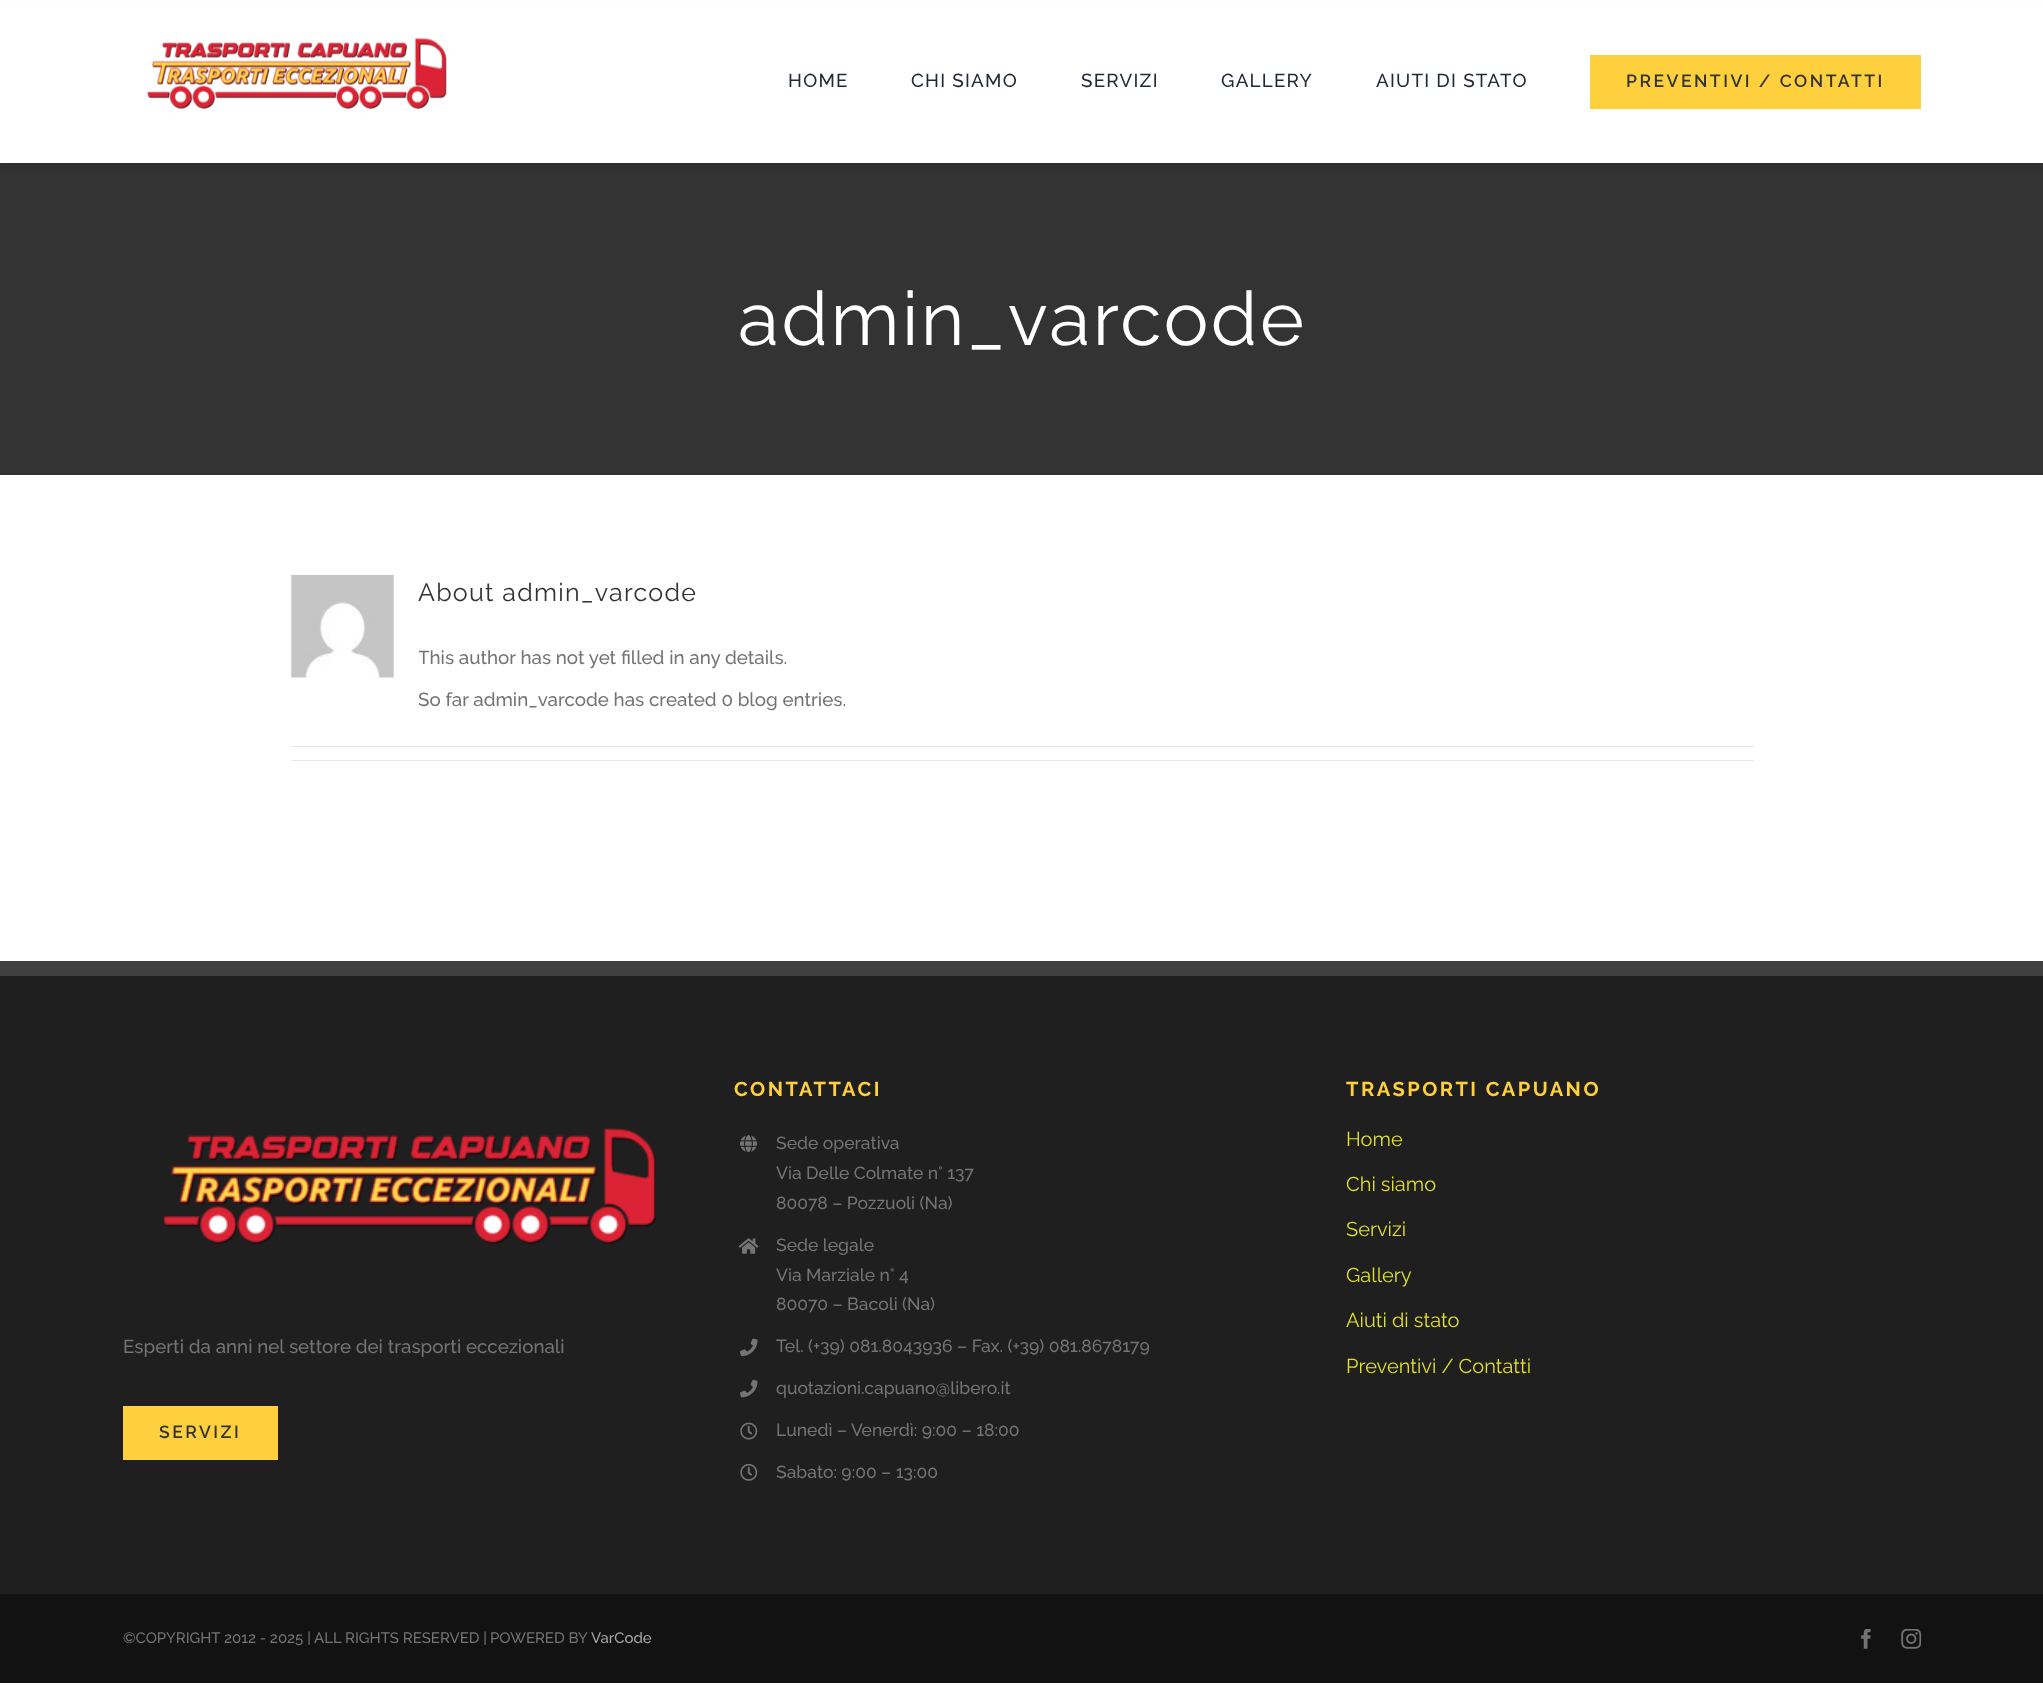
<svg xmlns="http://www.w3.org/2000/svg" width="2043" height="1685">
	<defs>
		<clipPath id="clip1"><rect x="419" y="575" width="1335" height="146" /></clipPath>
	</defs>
	<rect width="100%" height="100%" fill="#FFFFFF" />
	<rect x="0" y="163" width="2043" height="312" fill="#333333" />
	<rect x="0" y="6" width="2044" height="163" fill="#000000" fill-opacity="0.07" filter="blur(3px)" />
	<rect x="0" y="3" width="2043" height="160" fill="#FFFFFF" />
	<image x="147" y="37" width="300" height="72" href="assets/img1.png" />
	<g font-family="Raleway" font-size="18.75" font-weight="500" letter-spacing="1.25" fill="#212934">
		<text x="788" y="87">HOME</text>
		<text x="911" y="87">CHI SIAMO</text>
		<text x="1081" y="87">SERVIZI</text>
		<text x="1221" y="87">GALLERY</text>
		<text x="1376" y="87">AIUTI DI STATO</text>
	</g>
	<rect x="1590" y="55" width="331" height="54" fill="#FED03D" />
	<text x="1626" y="87" font-family="Raleway" font-size="17.5" font-weight="600" letter-spacing="2.5" fill="#333333">PREVENTIVI / CONTATTI</text>
	<text x="738" y="345" font-family="Raleway" font-size="75" letter-spacing="2.5" fill="#FFFFFF">admin_varcode</text>
	<image x="291" y="575" width="103" height="103" href="assets/img2.png" />
	<text x="418" y="601" font-family="Raleway" font-size="25" letter-spacing="1.25" fill="#333333">About admin_varcode</text>
	<g clip-path="url(#clip1)">
		<text x="418" y="664" font-family="Raleway" font-size="18.75" font-weight="500" fill="#747474">This author has not yet filled in any details.</text>
	</g>
	<text x="418" y="706" font-family="Raleway" font-size="18.75" font-weight="500" fill="#747474">So far admin_varcode has created 0 blog entries.</text>
	<rect x="291" y="746" width="1463" height="1" fill="#EAE8E8" />
	<rect x="291" y="760" width="1463" height="1" fill="#EAE8E8" />
	<rect x="0" y="976" width="2043" height="618" fill="#1F1F1F" />
	<rect x="0" y="961" width="2043" height="15" fill="#404040" />
	<text x="734" y="1096" font-family="Raleway" font-size="20" font-weight="700" letter-spacing="2.5" fill="#FED03D">CONTATTACI</text>
	<image x="740" y="1135" width="17" height="17" href="assets/img3.png" />
	<g font-family="Raleway" font-size="17.5" font-weight="500" fill="#747474">
		<text x="776" y="1149">Sede operativa</text>
		<text x="776" y="1179">Via Delle Colmate n° 137</text>
		<text x="776" y="1209">80078 – Pozzuoli (Na)</text>
	</g>
	<image x="738" y="1238" width="21" height="16" href="assets/img4.png" />
	<g font-family="Raleway" font-size="17.5" font-weight="500" fill="#747474">
		<text x="776" y="1251">Sede legale</text>
		<text x="776" y="1281">Via Marziale n° 4</text>
		<text x="776" y="1310">80070 – Bacoli (Na)</text>
	</g>
	<image x="740" y="1338" width="18" height="19" href="assets/img5.png" />
	<text x="776" y="1352" font-family="Raleway" font-size="17.5" font-weight="500" fill="#747474">Tel. (+39) 081.8043936 – Fax. (+39) 081.8678179</text>
	<image x="740" y="1379" width="18" height="19" href="assets/img6.png" />
	<text x="776" y="1394" font-family="Raleway" font-size="17.5" font-weight="500" fill="#747474">quotazioni.capuano@libero.it</text>
	<image x="740" y="1422" width="18" height="18" href="assets/img7.png" />
	<text x="776" y="1436" font-family="Raleway" font-size="17.5" font-weight="500" fill="#747474">Lunedì – Venerdì: 9:00 – 18:00</text>
	<image x="740" y="1463" width="18" height="18" href="assets/img8.png" />
	<text x="776" y="1478" font-family="Raleway" font-size="17.5" font-weight="500" fill="#747474">Sabato: 9:00 – 13:00</text>
	<text x="1346" y="1096" font-family="Raleway" font-size="20" font-weight="700" letter-spacing="2.5" fill="#FED03D">TRASPORTI CAPUANO</text>
	<g font-family="Raleway" font-size="20" fill="#E2DF2D">
		<text x="1346" y="1146">Home</text>
		<text x="1346" y="1191">Chi siamo</text>
		<text x="1346" y="1236">Servizi</text>
		<text x="1346" y="1282">Gallery</text>
		<text x="1346" y="1327">Aiuti di stato</text>
		<text x="1346" y="1373">Preventivi / Contatti</text>
	</g>
	<image x="162" y="1128" width="494" height="116" href="assets/img9.png" />
	<text x="123" y="1353" font-family="Raleway" font-size="18.75" font-weight="500" fill="#747474">Esperti da anni nel settore dei trasporti eccezionali</text>
	<rect x="123" y="1406" width="155" height="54" fill="#FED03D" />
	<text x="159" y="1438" font-family="Raleway" font-size="17.5" font-weight="600" letter-spacing="2.5" fill="#333333">SERVIZI</text>
	<rect x="0" y="1594" width="2043" height="89" fill="#121212" />
	<g font-family="Raleway" font-size="15" font-weight="500" fill="#747474">
		<text x="123" y="1643">©COPYRIGHT 2012 - 2025 | ALL RIGHTS RESERVED |</text>
		<text x="490" y="1643">POWERED BY</text>
	</g>
	<text x="591" y="1643" font-family="Raleway" font-size="15" font-weight="500" fill="#A6A6A6">VarCode</text>
	<image x="1861" y="1629" width="10" height="20" href="assets/img10.png" />
	<image x="1901" y="1629" width="20" height="20" href="assets/img11.png" />
</svg>
